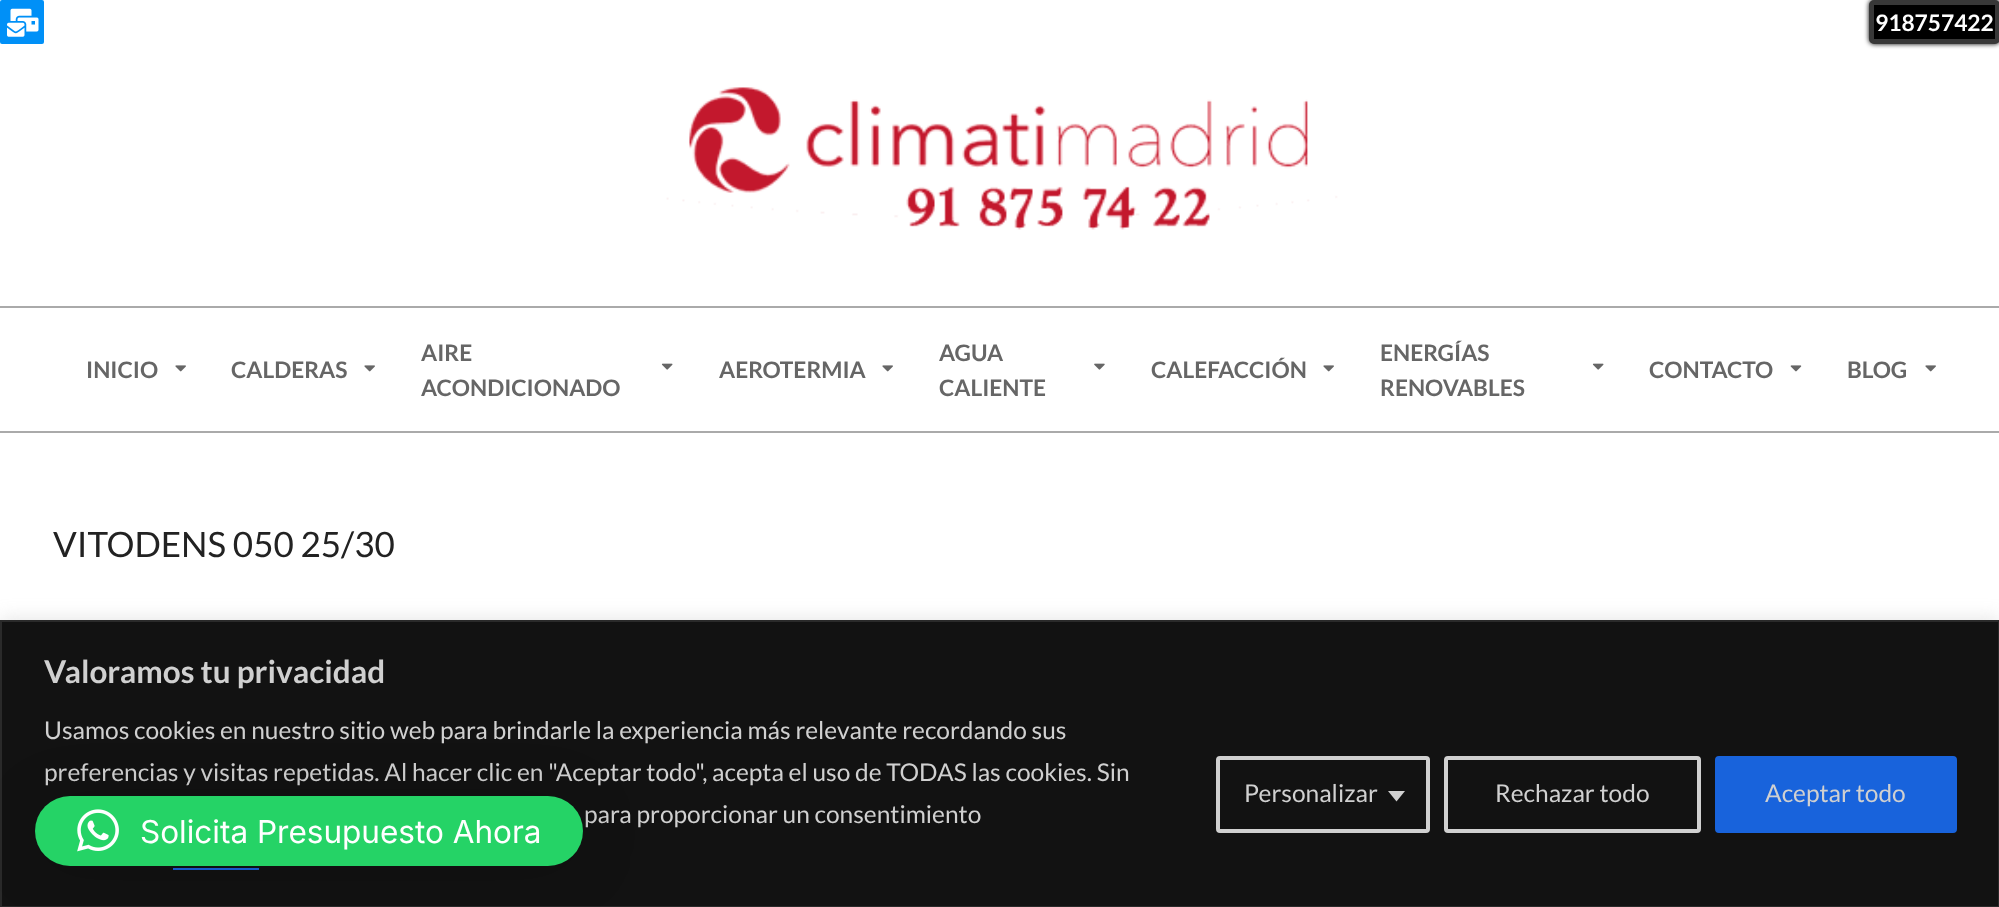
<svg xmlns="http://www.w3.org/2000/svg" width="1999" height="907">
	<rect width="100%" height="100%" fill="#FFFFFF" />
	<rect x="0" y="0" width="44" height="44" rx="2" fill="#0090F7" />
	<image x="7" y="8" width="32" height="29" href="assets/img1.png" />
	<rect x="1869" y="0" width="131" height="44" rx="5" fill="#020202" filter="blur(2.5px)" />
	<rect x="1871.5" y="2.5" width="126" height="39" rx="2.5" fill="#000000" stroke="#383838" stroke-width="5" />
	<text x="1875" y="31" font-family="Lato" font-size="22.75" font-weight="700" fill="#FFFFFF">918757422</text>
	<rect x="0" y="306" width="1999" height="2" fill="#AAAAAA" />
	<image x="666" y="87" width="672" height="143" href="assets/img2.png" />
	<rect x="0" y="431" width="1999" height="2" fill="#AAAAAA" />
	<text x="86" y="378" font-family="Lato" font-size="22.75" font-weight="700" fill="#666666">INICIO</text>
	<image x="175" y="365" width="11" height="7" href="assets/img3.png" />
	<text x="231" y="378" font-family="Lato" font-size="22.75" font-weight="700" fill="#666666">CALDERAS</text>
	<image x="364" y="365" width="11" height="7" href="assets/img3.png" />
	<text x="421" y="361" font-family="Lato" font-size="22.75" font-weight="700" fill="#666666">AIRE</text>
	<image x="661" y="363" width="12" height="7" href="assets/img4.png" />
	<g font-family="Lato" font-size="22.75" font-weight="700" fill="#666666">
		<text x="421" y="396">ACONDICIONADO</text>
		<text x="719" y="378">AEROTERMIA</text>
	</g>
	<image x="882" y="365" width="11" height="7" href="assets/img3.png" />
	<text x="939" y="361" font-family="Lato" font-size="22.75" font-weight="700" fill="#666666">AGUA</text>
	<image x="1094" y="363" width="11" height="7" href="assets/img5.png" />
	<g font-family="Lato" font-size="22.75" font-weight="700" fill="#666666">
		<text x="939" y="396">CALIENTE</text>
		<text x="1151" y="378">CALEFACCIÓN</text>
	</g>
	<image x="1323" y="365" width="11" height="7" href="assets/img3.png" />
	<text x="1380" y="361" font-family="Lato" font-size="22.75" font-weight="700" fill="#666666">ENERGÍAS</text>
	<image x="1592" y="363" width="12" height="7" href="assets/img4.png" />
	<g font-family="Lato" font-size="22.75" font-weight="700" fill="#666666">
		<text x="1380" y="396">RENOVABLES</text>
		<text x="1649" y="378">CONTACTO</text>
	</g>
	<image x="1790" y="365" width="12" height="7" href="assets/img6.png" />
	<text x="1847" y="378" font-family="Lato" font-size="22.75" font-weight="700" fill="#666666">BLOG</text>
	<image x="1925" y="365" width="11" height="7" href="assets/img3.png" />
	<text x="53" y="557" font-family="Lato" font-size="35" fill="#222222">VITODENS 050 25/30</text>
	<rect x="0" y="618" width="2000" height="289" fill="#ACABAB" fill-opacity="0.3" filter="blur(9px)" />
	<rect x="1" y="621" width="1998" height="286" fill="#121212" stroke="#2A2A2A" stroke-width="2" />
	<text x="44" y="683" font-family="Lato" font-size="31.5" font-weight="700" fill="#D0D0D0">Valoramos tu privacidad</text>
	<g font-family="Lato" font-size="24.5" fill="#D0D0D0">
		<text x="44" y="739">Usamos cookies en nuestro sitio web para brindarle la experiencia más relevante recordando sus</text>
		<text x="44" y="781">preferencias y visitas repetidas. Al hacer clic en "Aceptar todo", acepta el uso de TODAS las cookies. Sin</text>
		<text x="584" y="823">para proporcionar un consentimiento</text>
	</g>
	<rect x="173" y="868" width="86" height="2" fill="#1863DC" />
	<rect x="1218" y="758" width="210" height="73" rx="2" fill="none" stroke="#D0D0D0" stroke-width="4" />
	<text x="1244" y="802" font-family="Lato" font-size="24.5" fill="#D0D0D0">Personalizar</text>
	<path d="M1388 791H1405L1396.5 801.5Z" fill="#D0D0D0" />
	<rect x="1446" y="758" width="253" height="73" rx="2" fill="none" stroke="#D0D0D0" stroke-width="4" />
	<text x="1495" y="802" font-family="Lato" font-size="24.5" fill="#D0D0D0">Rechazar todo</text>
	<rect x="1717" y="758" width="238" height="73" rx="2" fill="#1863DC" stroke="#1863DC" stroke-width="4" />
	<text x="1765" y="802" font-family="Lato" font-size="24.5" fill="#D0D0D0">Aceptar todo</text>
	<rect x="35" y="800" width="548" height="70" rx="35" fill="#000000" fill-opacity="0.16" filter="blur(28px)" />
	<rect x="35" y="796" width="548" height="70" rx="35" fill="#25D366" />
	<image x="77" y="809" width="42" height="43" href="assets/img7.png" />
	<text x="140" y="843" font-family="Inter" font-size="31.5" fill="#FFFFFF">Solicita Presupuesto Ahora</text>
</svg>
